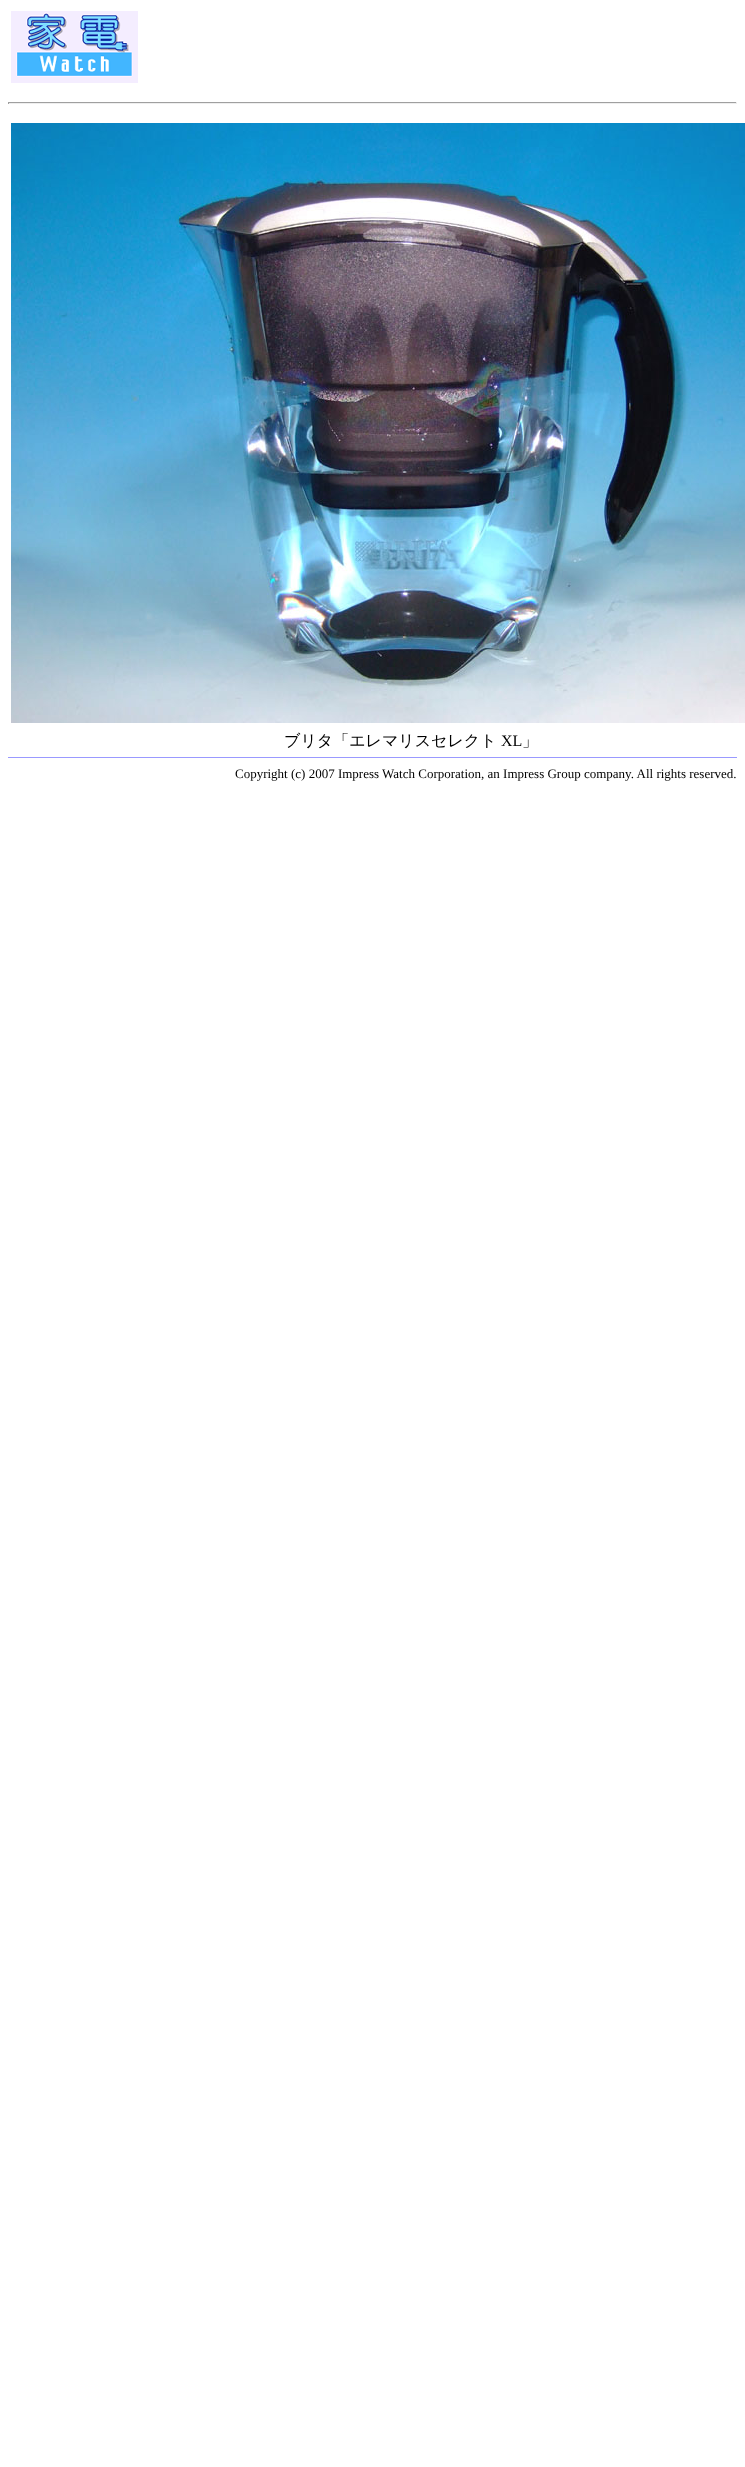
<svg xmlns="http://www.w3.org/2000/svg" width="745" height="2467">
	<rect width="100%" height="100%" fill="#FFFFFF" />
	<image x="11" y="11" width="127" height="72" href="assets/img1.png" />
	<rect x="8" y="102" width="729" height="1" fill="#9F9F9F" />
	<rect x="736" y="102" width="1" height="2" fill="#EEEEEE" />
	<rect x="8" y="103" width="729" height="1" fill="#EEEEEE" />
	<rect x="8" y="102" width="1" height="2" fill="#9F9F9F" />
	<image x="11" y="123" width="734" height="600" href="assets/img2.png" />
	<text x="284" y="746" font-family="WenQuanYi Zen Hei" font-size="16" font-weight="500" fill="#000000">ブリタ「エレマリスセレクト</text>
	<text x="501" y="746" font-family="Liberation Serif" font-size="16" fill="#000000">XL</text>
	<text x="522" y="746" font-family="WenQuanYi Zen Hei" font-size="16" font-weight="500" fill="#000000">」</text>
	<rect x="8" y="757" width="729" height="1" fill="#9999FF" />
	<text x="235" y="778" font-family="Liberation Serif" font-size="13" fill="#000000">Copyright (c) 2007 Impress Watch Corporation, an Impress Group company. All rights reserved.</text>
</svg>
